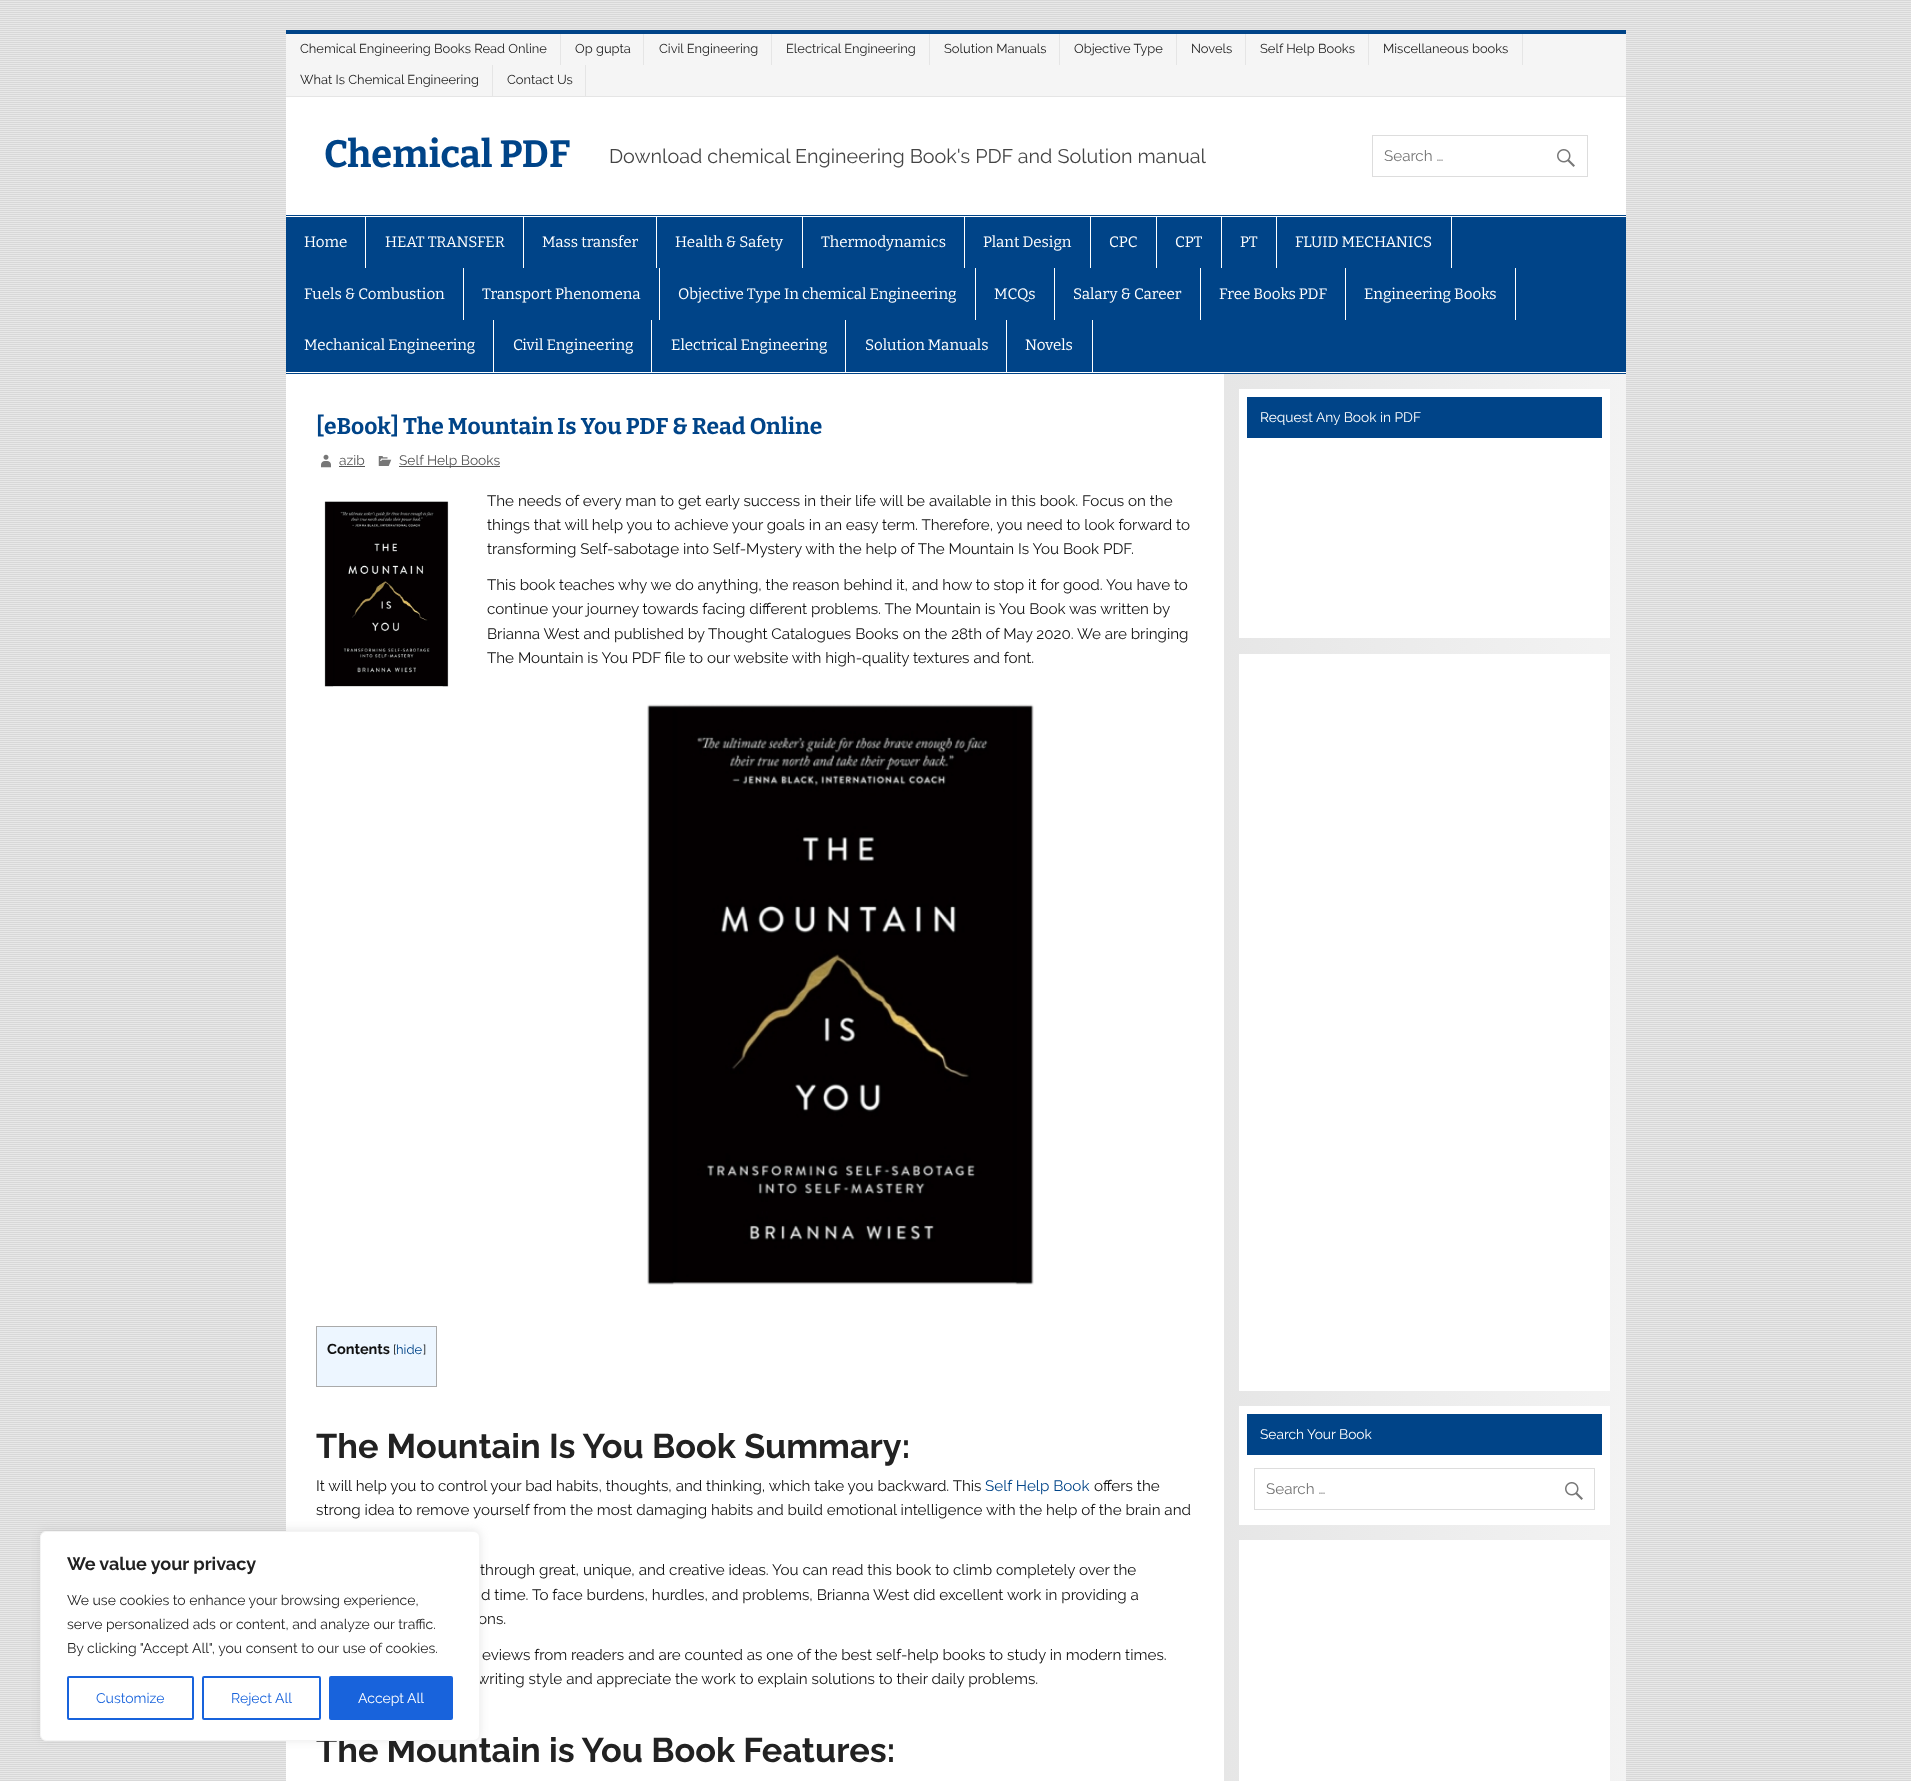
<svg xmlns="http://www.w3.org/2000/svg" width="1911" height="1781">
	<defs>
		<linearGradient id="g1" gradientUnits="userSpaceOnUse" x1="1224" y1="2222" x2="1626" y2="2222"><stop offset="0" stop-color="#E6E6E6" /><stop offset="1" stop-color="#F3F3F3" /></linearGradient>
	</defs>
	<rect width="100%" height="100%" fill="#FFFFFF" />
	<image x="0" y="0" width="1911" height="1781" href="assets/img1.png" />
	<rect x="286" y="97" width="1340" height="1684" fill="#FFFFFF" />
	<rect x="40" y="1530" width="440" height="210" rx="6" fill="#ACABAB" fill-opacity="0.3" filter="blur(5px)" />
	<g font-family="Raleway" font-size="15.2" fill="#111111">
		<text x="478" y="1624">ons.</text>
		<text x="477" y="1684">writing style and appreciate the work to explain solutions to their daily problems.</text>
	</g>
	<text x="316" y="1762" font-family="Raleway" font-size="34.25" font-weight="700" fill="#222222">The Mountain is You Book Features:</text>
	<rect x="40.5" y="1531.5" width="439" height="209" rx="5.5" fill="#FFFFFF" stroke="#F4F4F4" />
	<text x="67" y="1570" font-family="Raleway" font-size="18" font-weight="700" fill="#222222">We value your privacy</text>
	<g font-family="Raleway" font-size="14" fill="#222222">
		<text x="67" y="1605">We use cookies to enhance your browsing experience,</text>
		<text x="67" y="1629">serve personalized ads or content, and analyze our traffic.</text>
		<text x="67" y="1653">By clicking "Accept All", you consent to our use of cookies.</text>
	</g>
	<rect x="68" y="1677" width="125" height="42" rx="1" fill="none" stroke="#1863DC" stroke-width="2" />
	<text x="96" y="1703" font-family="Raleway" font-size="14" fill="#1863DC">Customize</text>
	<rect x="203" y="1677" width="117" height="42" rx="1" fill="none" stroke="#1863DC" stroke-width="2" />
	<text x="231" y="1703" font-family="Raleway" font-size="14" fill="#1863DC">Reject All</text>
	<rect x="330" y="1677" width="122" height="42" rx="1" fill="#1863DC" stroke="#1863DC" stroke-width="2" />
	<text x="358" y="1703" font-family="Raleway" font-size="14" fill="#FFFFFF">Accept All</text>
	<rect x="286" y="30" width="1340" height="4" fill="#004488" />
	<rect x="286" y="34" width="1340" height="62" fill="#F5F5F5" />
	<rect x="286" y="96" width="1340" height="1" fill="#E5E5E5" />
	<rect x="560" y="34" width="1" height="31" fill="#E5E5E5" />
	<text x="300" y="53" font-family="Raleway" font-size="12.9" fill="#222222">Chemical Engineering Books Read Online</text>
	<rect x="643" y="34" width="1" height="31" fill="#E5E5E5" />
	<text x="575" y="53" font-family="Raleway" font-size="12.9" fill="#222222">Op gupta</text>
	<rect x="771" y="34" width="1" height="31" fill="#E5E5E5" />
	<text x="659" y="53" font-family="Raleway" font-size="12.9" fill="#222222">Civil Engineering</text>
	<rect x="929" y="34" width="1" height="31" fill="#E5E5E5" />
	<text x="786" y="53" font-family="Raleway" font-size="12.9" fill="#222222">Electrical Engineering</text>
	<rect x="1059" y="34" width="1" height="31" fill="#E5E5E5" />
	<text x="944" y="53" font-family="Raleway" font-size="12.9" fill="#222222">Solution Manuals</text>
	<rect x="1176" y="34" width="1" height="31" fill="#E5E5E5" />
	<text x="1074" y="53" font-family="Raleway" font-size="12.9" fill="#222222">Objective Type</text>
	<rect x="1245" y="34" width="1" height="31" fill="#E5E5E5" />
	<text x="1191" y="53" font-family="Raleway" font-size="12.9" fill="#222222">Novels</text>
	<rect x="1368" y="34" width="1" height="31" fill="#E5E5E5" />
	<text x="1260" y="53" font-family="Raleway" font-size="12.9" fill="#222222">Self Help Books</text>
	<rect x="1522" y="34" width="1" height="31" fill="#E5E5E5" />
	<text x="1383" y="53" font-family="Raleway" font-size="12.9" fill="#222222">Miscellaneous books</text>
	<rect x="492" y="65" width="1" height="31" fill="#E5E5E5" />
	<text x="300" y="84" font-family="Raleway" font-size="12.9" fill="#222222">What Is Chemical Engineering</text>
	<rect x="585" y="65" width="1" height="31" fill="#E5E5E5" />
	<text x="507" y="84" font-family="Raleway" font-size="12.9" fill="#222222">Contact Us</text>
	<text x="324" y="167" font-family="Bitter" font-size="38" font-weight="700" fill="#004488">Chemical PDF</text>
	<text x="609" y="163" font-family="Raleway" font-size="19.75" fill="#444444">Download chemical Engineering Book's PDF and Solution manual</text>
	<rect x="1372.5" y="135.5" width="215" height="41" fill="none" stroke="#DDDDDD" />
	<text x="1384" y="161" font-family="Raleway" font-size="15.2" fill="#757575">Search …</text>
	<image x="1557" y="149" width="18" height="18" href="assets/img2.png" />
	<rect x="286" y="215" width="1340" height="1" fill="#004488" />
	<rect x="286" y="373" width="1340" height="1" fill="#004488" />
	<rect x="286" y="217" width="1340" height="155" fill="#004488" />
	<rect x="365" y="217" width="1" height="51" fill="#FFFFFF" />
	<text x="304" y="247" font-family="Bitter" font-size="15.2" fill="#FFFFFF">Home</text>
	<rect x="523" y="217" width="1" height="51" fill="#FFFFFF" />
	<text x="385" y="247" font-family="Bitter" font-size="15.2" fill="#FFFFFF">HEAT TRANSFER</text>
	<rect x="656" y="217" width="1" height="51" fill="#FFFFFF" />
	<text x="542" y="247" font-family="Bitter" font-size="15.2" fill="#FFFFFF">Mass transfer</text>
	<rect x="802" y="217" width="1" height="51" fill="#FFFFFF" />
	<text x="675" y="247" font-family="Bitter" font-size="15.2" fill="#FFFFFF">Health &amp; Safety</text>
	<rect x="964" y="217" width="1" height="51" fill="#FFFFFF" />
	<text x="821" y="247" font-family="Bitter" font-size="15.2" fill="#FFFFFF">Thermodynamics</text>
	<rect x="1090" y="217" width="1" height="51" fill="#FFFFFF" />
	<text x="983" y="247" font-family="Bitter" font-size="15.2" fill="#FFFFFF">Plant Design</text>
	<rect x="1156" y="217" width="1" height="51" fill="#FFFFFF" />
	<text x="1109" y="247" font-family="Bitter" font-size="15.2" fill="#FFFFFF">CPC</text>
	<rect x="1221" y="217" width="1" height="51" fill="#FFFFFF" />
	<text x="1175" y="247" font-family="Bitter" font-size="15.2" fill="#FFFFFF">CPT</text>
	<rect x="1276" y="217" width="1" height="51" fill="#FFFFFF" />
	<text x="1240" y="247" font-family="Bitter" font-size="15.2" fill="#FFFFFF">PT</text>
	<rect x="1451" y="217" width="1" height="51" fill="#FFFFFF" />
	<text x="1295" y="247" font-family="Bitter" font-size="15.2" fill="#FFFFFF">FLUID MECHANICS</text>
	<rect x="463" y="268" width="1" height="52" fill="#FFFFFF" />
	<text x="304" y="299" font-family="Bitter" font-size="15.2" fill="#FFFFFF">Fuels &amp; Combustion</text>
	<rect x="659" y="268" width="1" height="52" fill="#FFFFFF" />
	<text x="482" y="299" font-family="Bitter" font-size="15.2" fill="#FFFFFF">Transport Phenomena</text>
	<rect x="975" y="268" width="1" height="52" fill="#FFFFFF" />
	<text x="678" y="299" font-family="Bitter" font-size="15.2" fill="#FFFFFF">Objective Type In chemical Engineering</text>
	<rect x="1054" y="268" width="1" height="52" fill="#FFFFFF" />
	<text x="994" y="299" font-family="Bitter" font-size="15.2" fill="#FFFFFF">MCQs</text>
	<rect x="1200" y="268" width="1" height="52" fill="#FFFFFF" />
	<text x="1073" y="299" font-family="Bitter" font-size="15.2" fill="#FFFFFF">Salary &amp; Career</text>
	<rect x="1345" y="268" width="1" height="52" fill="#FFFFFF" />
	<text x="1219" y="299" font-family="Bitter" font-size="15.2" fill="#FFFFFF">Free Books PDF</text>
	<rect x="1515" y="268" width="1" height="52" fill="#FFFFFF" />
	<text x="1364" y="299" font-family="Bitter" font-size="15.2" fill="#FFFFFF">Engineering Books</text>
	<rect x="493" y="320" width="1" height="52" fill="#FFFFFF" />
	<text x="304" y="350" font-family="Bitter" font-size="15.2" fill="#FFFFFF">Mechanical Engineering</text>
	<rect x="651" y="320" width="1" height="52" fill="#FFFFFF" />
	<text x="513" y="350" font-family="Bitter" font-size="15.2" fill="#FFFFFF">Civil Engineering</text>
	<rect x="845" y="320" width="1" height="52" fill="#FFFFFF" />
	<text x="671" y="350" font-family="Bitter" font-size="15.2" fill="#FFFFFF">Electrical Engineering</text>
	<rect x="1006" y="320" width="1" height="52" fill="#FFFFFF" />
	<text x="865" y="350" font-family="Bitter" font-size="15.2" fill="#FFFFFF">Solution Manuals</text>
	<rect x="1092" y="320" width="1" height="52" fill="#FFFFFF" />
	<text x="1025" y="350" font-family="Bitter" font-size="15.2" fill="#FFFFFF">Novels</text>
	<text x="316" y="434" font-family="Bitter" font-size="22.8" font-weight="700" fill="#004488">[eBook] The Mountain Is You PDF &amp; Read Online</text>
	<image x="321" y="454" width="10" height="14" href="assets/img3.png" />
	<text x="339" y="465" font-family="Raleway" font-size="13.75" fill="#555555">azib</text>
	<rect x="339" y="466" width="26" height="1" fill="#555555" />
	<image x="378" y="456" width="14" height="10" href="assets/img4.png" />
	<rect x="399" y="466" width="101" height="1" fill="#555555" />
	<text x="399" y="465" font-family="Raleway" font-size="13.75" fill="#555555">Self Help Books</text>
	<image x="324" y="501" width="125" height="186" href="assets/img5.png" />
	<g font-family="Raleway" font-size="15.2" fill="#111111">
		<text x="487" y="506">The needs of every man to get early success in their life will be available in this book. Focus on the</text>
		<text x="487" y="530">things that will help you to achieve your goals in an easy term. Therefore, you need to look forward to</text>
		<text x="487" y="554">transforming Self-sabotage into Self-Mystery with the help of The Mountain Is You Book PDF.</text>
		<text x="487" y="590">This book teaches why we do anything, the reason behind it, and how to stop it for good. You have to</text>
		<text x="487" y="614">continue your journey towards facing different problems. The Mountain is You Book was written by</text>
		<text x="487" y="639">Brianna West and published by Thought Catalogues Books on the 28th of May 2020. We are bringing</text>
		<text x="487" y="663">The Mountain is You PDF file to our website with high-quality textures and font.</text>
	</g>
	<image x="647" y="704" width="387" height="581" href="assets/img6.png" />
	<rect x="316.5" y="1326.5" width="120" height="60" fill="#EDF6FF" stroke="#AAAAAA" />
	<text x="327" y="1354" font-family="Raleway" font-size="14.5" font-weight="700" fill="#111111">Contents</text>
	<text x="393" y="1354" font-family="Raleway" font-size="13" fill="#111111">[</text>
	<text x="396" y="1354" font-family="Raleway" font-size="13" fill="#004488">hide</text>
	<text x="423" y="1354" font-family="Raleway" font-size="13" fill="#111111">]</text>
	<text x="316" y="1458" font-family="Raleway" font-size="34.25" font-weight="700" fill="#222222">The Mountain Is You Book Summary:</text>
	<text x="316" y="1491" font-family="Raleway" font-size="15.2" fill="#111111">It will help you to control your bad habits, thoughts, and thinking, which take you backward. This</text>
	<text x="985" y="1491" font-family="Raleway" font-size="15.2" fill="#004488">Self Help Book</text>
	<g font-family="Raleway" font-size="15.2" fill="#111111">
		<text x="1094" y="1491">offers the</text>
		<text x="316" y="1515">strong idea to remove yourself from the most damaging habits and build emotional intelligence with the help of the brain and</text>
		<text x="480" y="1575">through great, unique, and creative ideas. You can read this book to climb completely over the</text>
		<text x="481" y="1600">d time. To face burdens, hurdles, and problems, Brianna West did excellent work in providing a</text>
		<text x="482" y="1660">eviews from readers and are counted as one of the best self-help books to study in modern times.</text>
	</g>
	<rect x="1224" y="374" width="402" height="1407" fill="url(#g1)" />
	<rect x="1239" y="389" width="371" height="249" fill="#FFFFFF" />
	<rect x="1247" y="397" width="355" height="41" fill="#004488" />
	<text x="1260" y="422" font-family="Raleway" font-size="13.75" fill="#FFFFFF">Request Any Book in PDF</text>
	<rect x="1239" y="654" width="371" height="737" fill="#FFFFFF" />
	<rect x="1239" y="1406" width="371" height="119" fill="#FFFFFF" />
	<rect x="1247" y="1414" width="355" height="41" fill="#004488" />
	<text x="1260" y="1439" font-family="Raleway" font-size="13.75" fill="#FFFFFF">Search Your Book</text>
	<rect x="1254.5" y="1468.5" width="340" height="41" fill="none" stroke="#DDDDDD" />
	<text x="1266" y="1494" font-family="Raleway" font-size="15.2" fill="#757575">Search …</text>
	<image x="1565" y="1482" width="18" height="18" href="assets/img2.png" />
	<rect x="1239" y="1540" width="371" height="241" fill="#FFFFFF" />
</svg>
